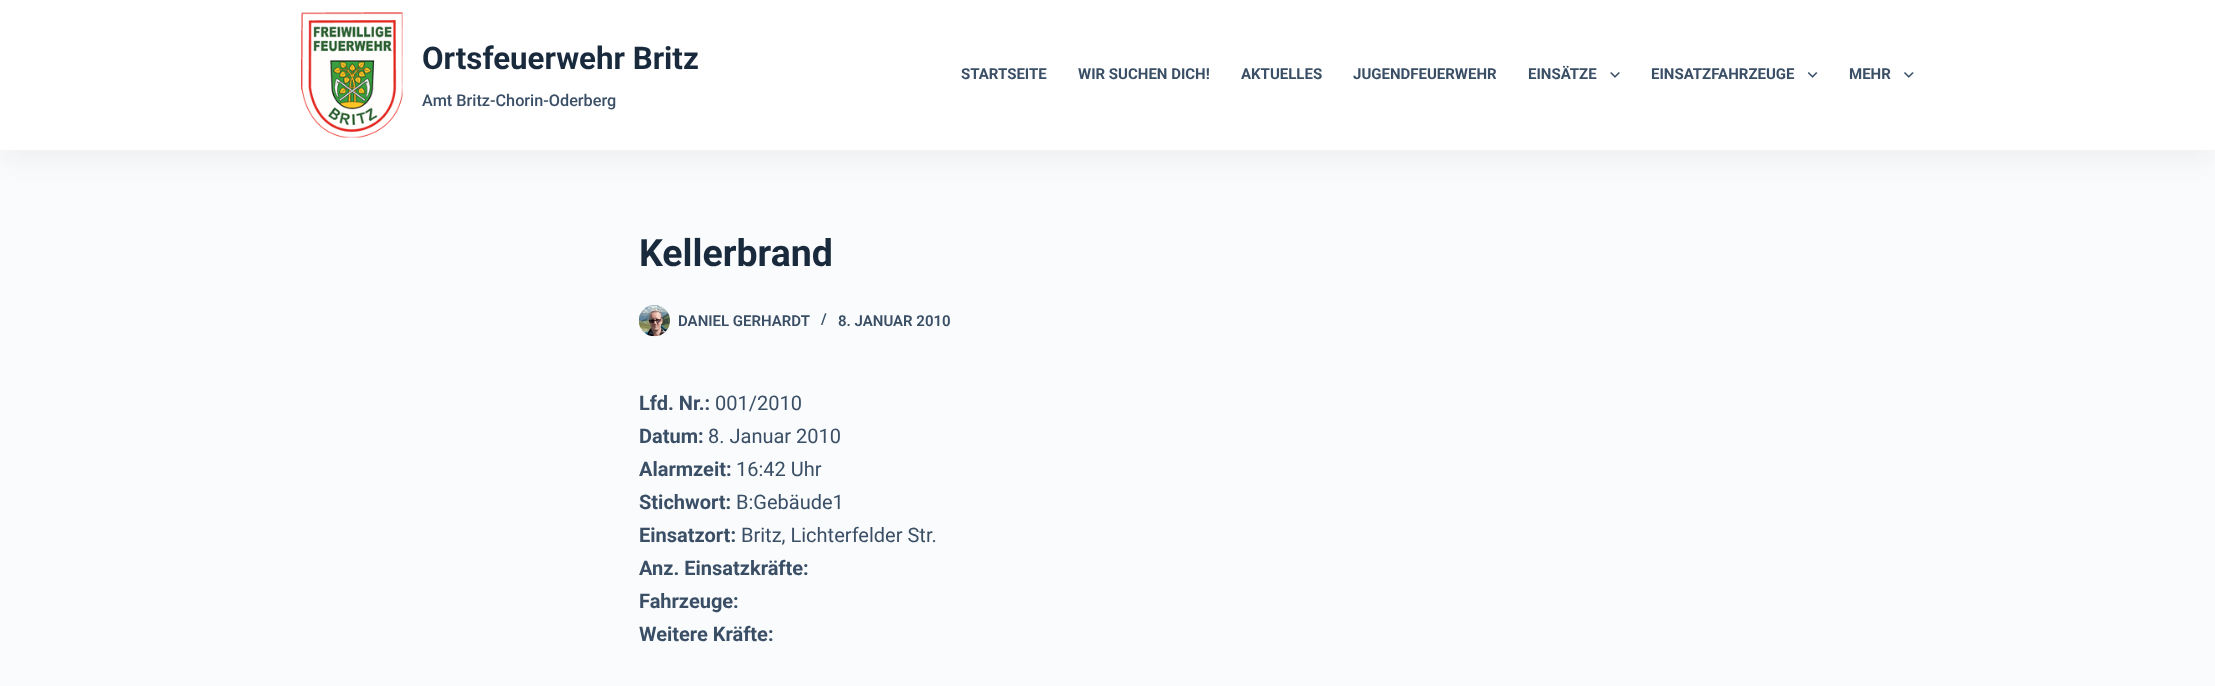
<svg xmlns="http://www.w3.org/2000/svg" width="2215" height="686">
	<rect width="100%" height="100%" fill="#FAFBFC" />
	<rect x="0" y="13" width="2215" height="150" fill="#2C3E50" fill-opacity="0.05" filter="blur(12.5px)" />
	<rect x="0" y="0" width="2215" height="150" fill="#FFFFFF" />
	<image x="301" y="12" width="102" height="126" href="assets/img1.png" />
	<text x="422" y="69" font-family="Roboto" font-size="31.25" font-weight="700" fill="#192A3D">Ortsfeuerwehr Britz</text>
	<text x="422" y="106" font-family="Roboto" font-size="16.25" font-weight="500" fill="#3A4F66">Amt Britz-Chorin-Oderberg</text>
	<g font-family="Roboto" font-size="15" font-weight="700" fill="#3A4F66">
		<text x="961" y="79">STARTSEITE</text>
		<text x="1078" y="79">WIR SUCHEN DICH!</text>
		<text x="1241" y="79">AKTUELLES</text>
		<text x="1353" y="79">JUGENDFEUERWEHR</text>
		<text x="1528" y="79">EINSÄTZE</text>
	</g>
	<image x="1610" y="72" width="10" height="6" href="assets/img2.png" />
	<text x="1651" y="79" font-family="Roboto" font-size="15" font-weight="700" fill="#3A4F66">EINSATZFAHRZEUGE</text>
	<image x="1808" y="72" width="10" height="6" href="assets/img3.png" />
	<text x="1849" y="79" font-family="Roboto" font-size="15" font-weight="700" fill="#3A4F66">MEHR</text>
	<image x="1904" y="72" width="10" height="6" href="assets/img4.png" />
	<text x="639" y="266" font-family="Roboto" font-size="37.5" font-weight="700" fill="#192A3D">Kellerbrand</text>
	<image x="638" y="305" width="32" height="32" href="assets/img5.png" />
	<g font-family="Roboto" font-size="15" font-weight="600" fill="#3A4F66">
		<text x="678" y="326">DANIEL GERHARDT</text>
		<text x="821" y="324">/</text>
		<text x="838" y="326">8. JANUAR 2010</text>
	</g>
	<text x="639" y="410" font-family="Roboto" font-size="20" font-weight="700" fill="#3A4F66">Lfd. Nr.:</text>
	<text x="715" y="410" font-family="Roboto" font-size="20" fill="#3A4F66">001/2010</text>
	<text x="639" y="443" font-family="Roboto" font-size="20" font-weight="700" fill="#3A4F66">Datum:</text>
	<text x="708" y="443" font-family="Roboto" font-size="20" fill="#3A4F66">8. Januar 2010</text>
	<text x="639" y="476" font-family="Roboto" font-size="20" font-weight="700" fill="#3A4F66">Alarmzeit:</text>
	<text x="736" y="476" font-family="Roboto" font-size="20" fill="#3A4F66">16:42 Uhr</text>
	<text x="639" y="509" font-family="Roboto" font-size="20" font-weight="700" fill="#3A4F66">Stichwort:</text>
	<text x="736" y="509" font-family="Roboto" font-size="20" fill="#3A4F66">B:Gebäude1</text>
	<text x="639" y="542" font-family="Roboto" font-size="20" font-weight="700" fill="#3A4F66">Einsatzort:</text>
	<text x="741" y="542" font-family="Roboto" font-size="20" fill="#3A4F66">Britz, Lichterfelder Str.</text>
	<g font-family="Roboto" font-size="20" font-weight="700" fill="#3A4F66">
		<text x="639" y="575">Anz. Einsatzkräfte:</text>
		<text x="639" y="608">Fahrzeuge:</text>
		<text x="639" y="641">Weitere Kräfte:</text>
	</g>
</svg>
